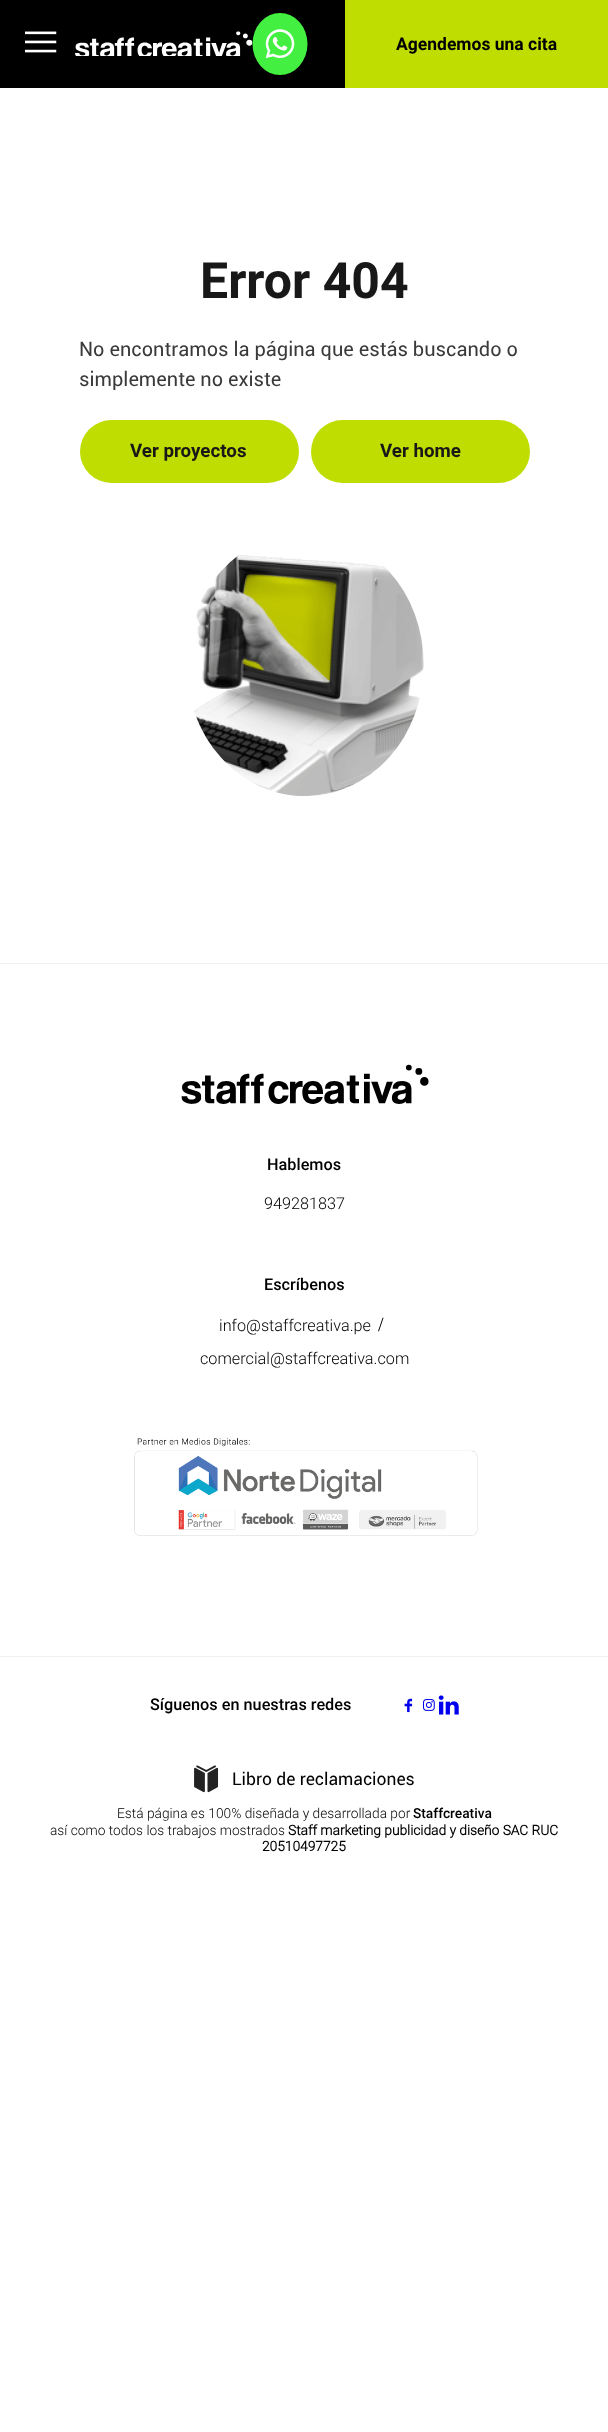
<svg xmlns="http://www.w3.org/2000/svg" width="608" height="2432">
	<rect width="100%" height="100%" fill="#FFFFFF" />
	<rect x="0" y="0" width="345" height="88" fill="#000000" />
	<image x="25" y="31" width="32" height="22" href="assets/img1.png" />
	<image x="75" y="31" width="178" height="25" href="assets/img2.png" />
	<ellipse cx="280" cy="44" rx="27.5" ry="31" fill="#43EF40" />
	<image x="265" y="29" width="30" height="30" href="assets/img3.png" />
	<rect x="345" y="0" width="263" height="88" fill="#BFDD00" />
	<text x="396" y="50" font-family="'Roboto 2'" font-size="17.5" font-weight="700" fill="#000000">Agendemos una cita</text>
	<text x="200" y="298" font-family="'Roboto 2'" font-size="50" font-weight="700" fill="#181818">Error 404</text>
	<g font-family="Roboto" font-size="20" fill="#3A3A3A">
		<text x="79" y="356">No encontramos la página que estás buscando o</text>
		<text x="79" y="386">simplemente no existe</text>
	</g>
	<rect x="80" y="420" width="219" height="63" rx="31.5" fill="#BFDD00" />
	<text x="130" y="457" font-family="'Roboto 2'" font-size="18.75" font-weight="700" fill="#181818">Ver proyectos</text>
	<rect x="311" y="420" width="219" height="63" rx="31.5" fill="#BFDD00" />
	<text x="380" y="457" font-family="'Roboto 2'" font-size="18.75" font-weight="700" fill="#181818">Ver home</text>
	<image x="194" y="555" width="230" height="241" href="assets/img4.png" />
	<rect x="0" y="963" width="608" height="1" fill="#EDEFF1" />
	<image x="181" y="1064" width="248" height="40" href="assets/img5.png" />
	<text x="267" y="1170" font-family="Roboto" font-size="16.25" font-weight="500" fill="#000000">Hablemos</text>
	<text x="264" y="1209" font-family="Roboto" font-size="16.25" font-weight="300" fill="#000000">949281837</text>
	<text x="264" y="1290" font-family="Roboto" font-size="16.25" font-weight="500" fill="#000000">Escríbenos</text>
	<text x="219" y="1331" font-family="Roboto" font-size="16.25" font-weight="300" fill="#000000">info@staffcreativa.pe</text>
	<text x="378" y="1331" font-family="Liberation Serif" font-size="20" fill="#000000">/</text>
	<text x="200" y="1364" font-family="Roboto" font-size="16.25" font-weight="300" fill="#000000">comercial@staffcreativa.com</text>
	<image x="134" y="1438" width="344" height="98" href="assets/img6.png" />
	<rect x="0" y="1656" width="608" height="1" fill="#EDEFF1" />
	<text x="150" y="1710" font-family="Roboto" font-size="16.25" font-weight="500" fill="#000000">Síguenos en nuestras redes</text>
	<image x="404" y="1698" width="9" height="15" href="assets/img7.png" />
	<image x="423" y="1699" width="12" height="12" href="assets/img8.png" />
	<image x="438" y="1695" width="21" height="20" href="assets/img9.png" />
	<image x="194" y="1765" width="25" height="28" href="assets/img10.png" />
	<text x="232" y="1785" font-family="Roboto" font-size="17.5" fill="#000000">Libro de reclamaciones</text>
	<text x="117" y="1818" font-family="Roboto" font-size="13.75" font-weight="300" fill="#000000">Está página es 100% diseñada y desarrollada por</text>
	<text x="413" y="1818" font-family="Roboto" font-size="13.75" font-weight="500" fill="#000000">Staffcreativa</text>
	<text x="50" y="1835" font-family="Roboto" font-size="13.75" font-weight="300" fill="#000000">así como todos los trabajos mostrados</text>
	<g font-family="Roboto" font-size="13.75" font-weight="700" fill="#000000">
		<text x="288" y="1835">Staff marketing publicidad y diseño SAC RUC</text>
		<text x="262" y="1851">20510497725</text>
	</g>
</svg>
